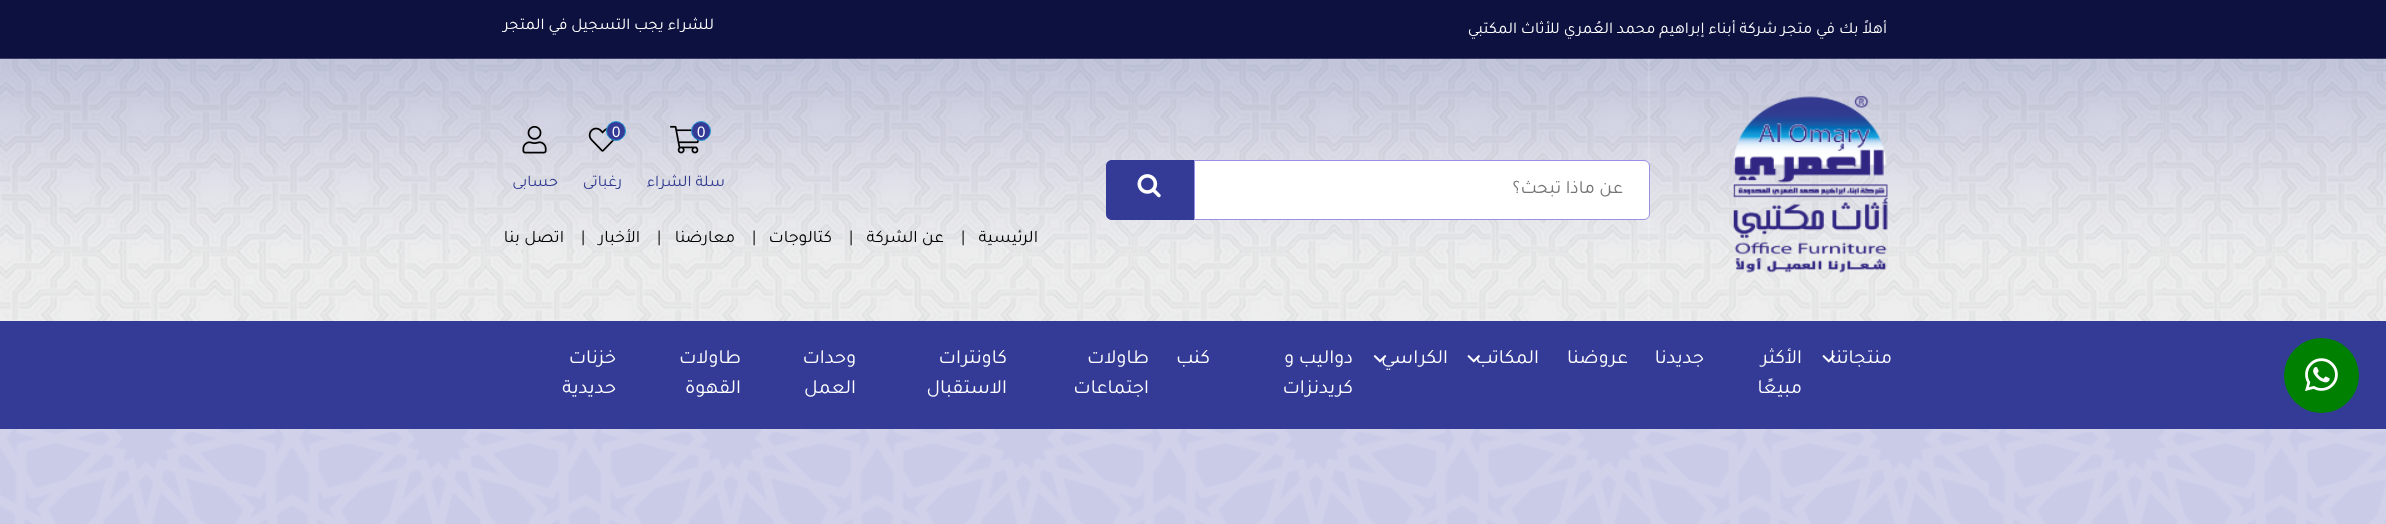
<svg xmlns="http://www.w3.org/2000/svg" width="2386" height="524">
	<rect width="100%" height="100%" fill="#FFFFFF" />
	<image x="0" y="429" width="2386" height="95" href="assets/img1.png" />
	<rect x="0" y="0" width="2386" height="59" fill="#0D1140" />
	<g font-family="Tajawal" font-size="16.25" direction="rtl" fill="#FFFFFF">
		<text x="1887" y="33">أهلاً بك في متجر شركة أبناء إبراهيم محمد العُمري للأثاث المكتبي</text>
		<text x="714" y="29">للشراء يجب التسجيل في المتجر</text>
	</g>
	<image x="0" y="58" width="2386" height="263" href="assets/img2.png" />
	<image x="1733" y="96" width="155" height="177" href="assets/img3.png" />
	<path d="M1194.5 160.5H1644C1647 160.5 1649.5 163 1649.5 166V214C1649.5 217 1647 219.5 1644 219.5H1194.5Z" fill="#FFFFFF" stroke="#9990E2" />
	<text x="1623" y="193" font-family="Tajawal" font-size="18.75" direction="rtl" fill="#757575">عن ماذا تبحث؟</text>
	<path d="M1112 160H1194V220H1112C1108.5 220 1106 217.5 1106 214V166C1106 162.5 1108.5 160 1112 160Z" fill="#343B96" />
	<image x="1137" y="174" width="24" height="24" href="assets/img4.png" />
	<image x="670" y="125" width="29" height="29" href="assets/img5.png" />
	<circle cx="701" cy="131" r="9.5" fill="#343B96" stroke="#289CD6" />
	<text x="697" y="137" font-family="Liberation Sans" font-size="15" fill="#FFFFFF">0</text>
	<text x="725" y="186" font-family="Tajawal" font-size="16.25" direction="rtl" fill="#313A8F">سلة الشراء</text>
	<image x="588" y="127" width="27" height="25" href="assets/img6.png" />
	<circle cx="616" cy="131" r="9.5" fill="#343B96" stroke="#289CD6" />
	<text x="612" y="137" font-family="Liberation Sans" font-size="15" fill="#FFFFFF">0</text>
	<text x="622" y="186" font-family="Tajawal" font-size="16.25" direction="rtl" fill="#313A8F">رغباتى</text>
	<image x="522" y="125" width="25" height="29" href="assets/img7.png" />
	<text x="558" y="186" font-family="Tajawal" font-size="16.25" direction="rtl" fill="#313A8F">حسابى</text>
	<text x="1038" y="242" font-family="Tajawal" font-size="17.5" direction="rtl" fill="#000000">الرئيسية</text>
	<text x="961" y="242" font-family="Tajawal" font-size="17.5" fill="#000000">|</text>
	<text x="944" y="242" font-family="Tajawal" font-size="17.5" direction="rtl" fill="#000000">عن الشركة</text>
	<text x="849" y="242" font-family="Tajawal" font-size="17.5" fill="#000000">|</text>
	<text x="832" y="242" font-family="Tajawal" font-size="17.5" direction="rtl" fill="#000000">كتالوجات</text>
	<text x="752" y="242" font-family="Tajawal" font-size="17.5" fill="#000000">|</text>
	<text x="735" y="242" font-family="Tajawal" font-size="17.5" direction="rtl" fill="#000000">معارضنا</text>
	<text x="657" y="242" font-family="Tajawal" font-size="17.5" fill="#000000">|</text>
	<text x="640" y="242" font-family="Tajawal" font-size="17.5" direction="rtl" fill="#000000">الأخبار</text>
	<text x="581" y="242" font-family="Tajawal" font-size="17.5" fill="#000000">|</text>
	<text x="564" y="242" font-family="Tajawal" font-size="17.5" direction="rtl" fill="#000000">اتصل بنا</text>
	<rect x="0" y="321" width="2386" height="108" fill="#343B96" />
	<circle cx="2321.5" cy="375.5" r="37.5" fill="#008000" />
	<image x="2305" y="358" width="33" height="33" href="assets/img8.png" />
	<text x="1892" y="363" font-family="Tajawal" font-size="20" direction="rtl" fill="#FFFFFF">منتجاتنا</text>
	<image x="1822" y="355" width="13" height="8" href="assets/img9.png" />
	<g font-family="Tajawal" font-size="20" direction="rtl" fill="#FFFFFF">
		<text x="1802" y="363">الأكثر</text>
		<text x="1802" y="393">مبيعًا</text>
		<text x="1704" y="363">جديدنا</text>
		<text x="1628" y="363">عروضنا</text>
		<text x="1539" y="363">المكاتب</text>
	</g>
	<image x="1467" y="355" width="13" height="8" href="assets/img10.png" />
	<text x="1448" y="363" font-family="Tajawal" font-size="20" direction="rtl" fill="#FFFFFF">الكراسي</text>
	<image x="1373" y="355" width="14" height="8" href="assets/img11.png" />
	<g font-family="Tajawal" font-size="20" direction="rtl" fill="#FFFFFF">
		<text x="1353" y="363">دواليب و</text>
		<text x="1353" y="393">كريدنزات</text>
		<text x="1210" y="363">كنب</text>
		<text x="1149" y="363">طاولات</text>
		<text x="1149" y="393">اجتماعات</text>
		<text x="1007" y="363">كاونترات</text>
		<text x="1007" y="393">الاستقبال</text>
		<text x="856" y="363">وحدات</text>
		<text x="856" y="393">العمل</text>
		<text x="741" y="363">طاولات</text>
		<text x="741" y="393">القهوة</text>
		<text x="616" y="363">خزنات</text>
		<text x="616" y="393">حديدية</text>
	</g>
</svg>
